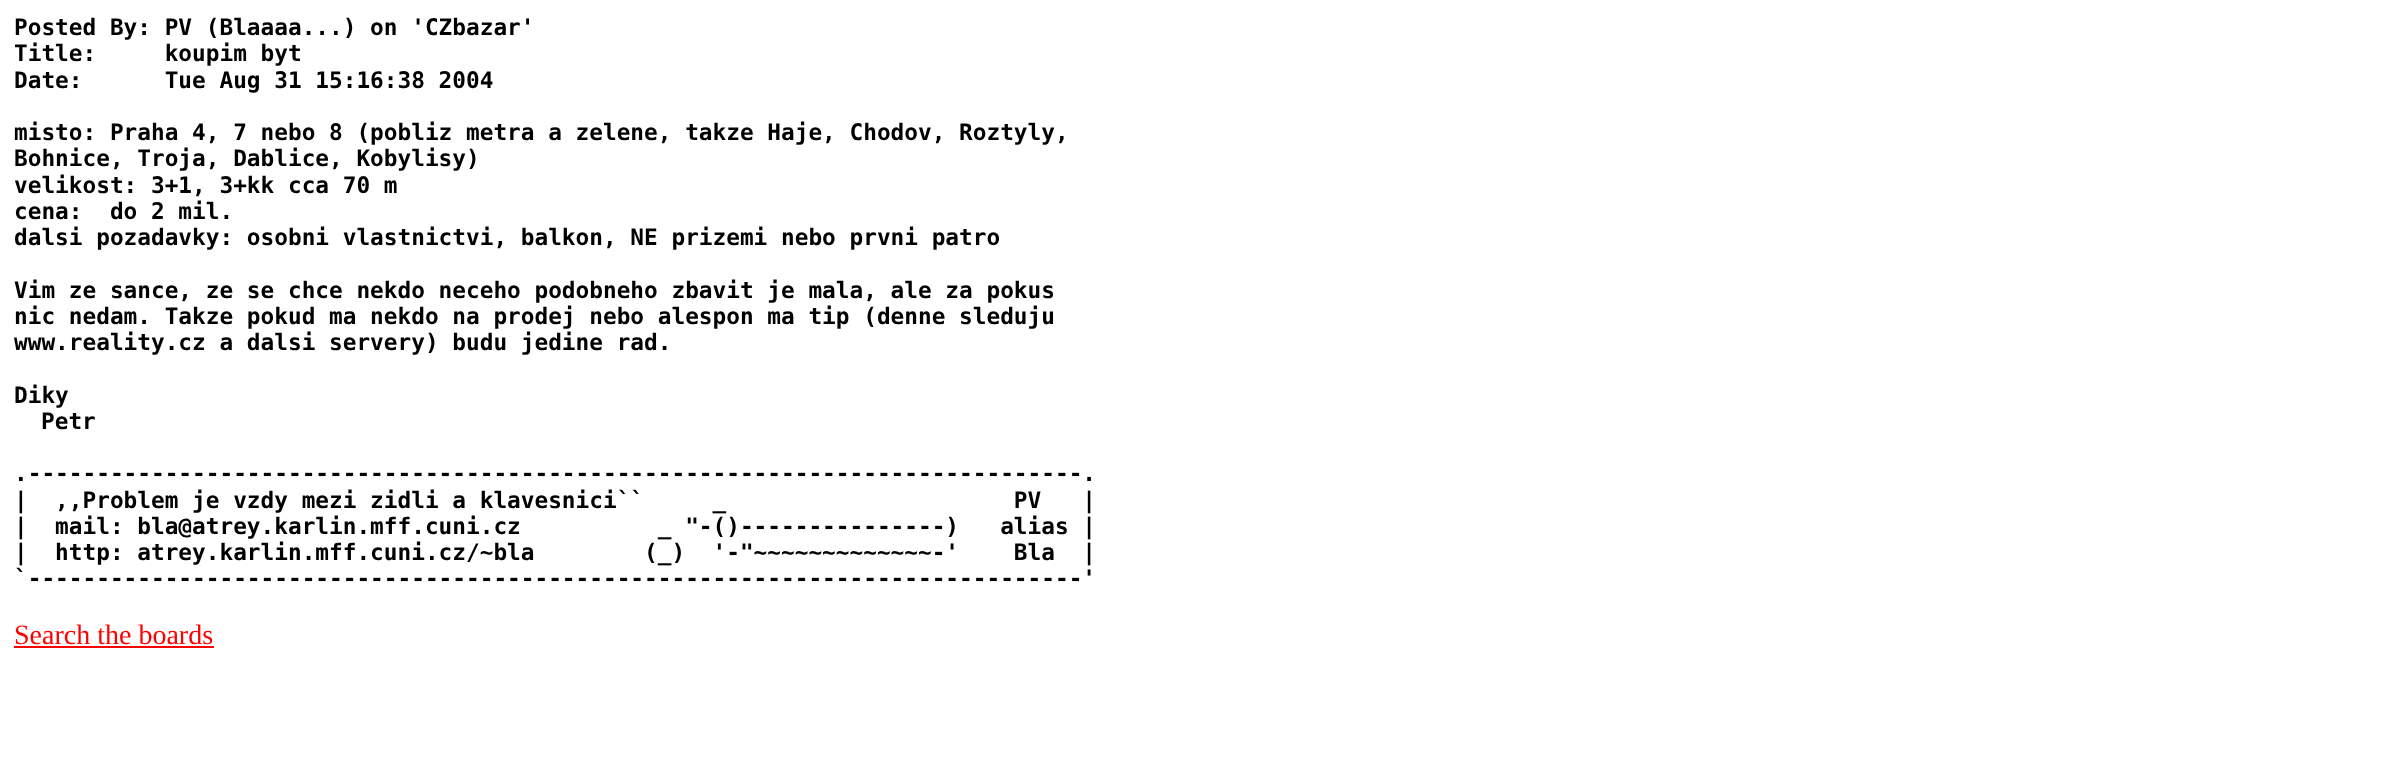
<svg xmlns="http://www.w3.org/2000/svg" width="2390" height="776">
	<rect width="100%" height="100%" fill="#FFFFFF" />
	<g font-family="DejaVu Sans Mono" font-size="22.75" font-weight="700" fill="#000000">
		<text x="14" y="35">Posted By: PV (Blaaaa...) on 'CZbazar'</text>
		<text x="14" y="61" xml:space="preserve">Title:     koupim byt</text>
		<text x="14" y="88" xml:space="preserve">Date:      Tue Aug 31 15:16:38 2004</text>
		<text x="14" y="140">misto: Praha 4, 7 nebo 8 (pobliz metra a zelene, takze Haje, Chodov, Roztyly,</text>
		<text x="14" y="166">Bohnice, Troja, Dablice, Kobylisy)</text>
		<text x="14" y="193">velikost: 3+1, 3+kk cca 70 m</text>
		<text x="14" y="219" xml:space="preserve">cena:  do 2 mil.</text>
		<text x="14" y="245">dalsi pozadavky: osobni vlastnictvi, balkon, NE prizemi nebo prvni patro</text>
		<text x="14" y="298">Vim ze sance, ze se chce nekdo neceho podobneho zbavit je mala, ale za pokus</text>
		<text x="14" y="324">nic nedam. Takze pokud ma nekdo na prodej nebo alespon ma tip (denne sleduju</text>
		<text x="14" y="350">www.reality.cz a dalsi servery) budu jedine rad.</text>
		<text x="14" y="403">Diky</text>
		<text x="41" y="429">Petr</text>
		<text x="14" y="481">.-----------------------------------------------------------------------------.</text>
		<text x="14" y="508" xml:space="preserve">|  ,,Problem je vzdy mezi zidli a klavesnici``     _                     PV   |</text>
		<text x="14" y="534" xml:space="preserve">|  mail: bla@atrey.karlin.mff.cuni.cz          _ "-()---------------)   alias |</text>
		<text x="14" y="560" xml:space="preserve">|  http: atrey.karlin.mff.cuni.cz/~bla        (_)  '-"~~~~~~~~~~~~~-'    Bla  |</text>
		<text x="14" y="586">`-----------------------------------------------------------------------------'</text>
	</g>
	<text x="14" y="644" font-family="Liberation Serif" font-size="28" fill="#FF0000">Search the boards</text>
	<rect x="14" y="646" width="200" height="2" fill="#FF0000" />
</svg>
